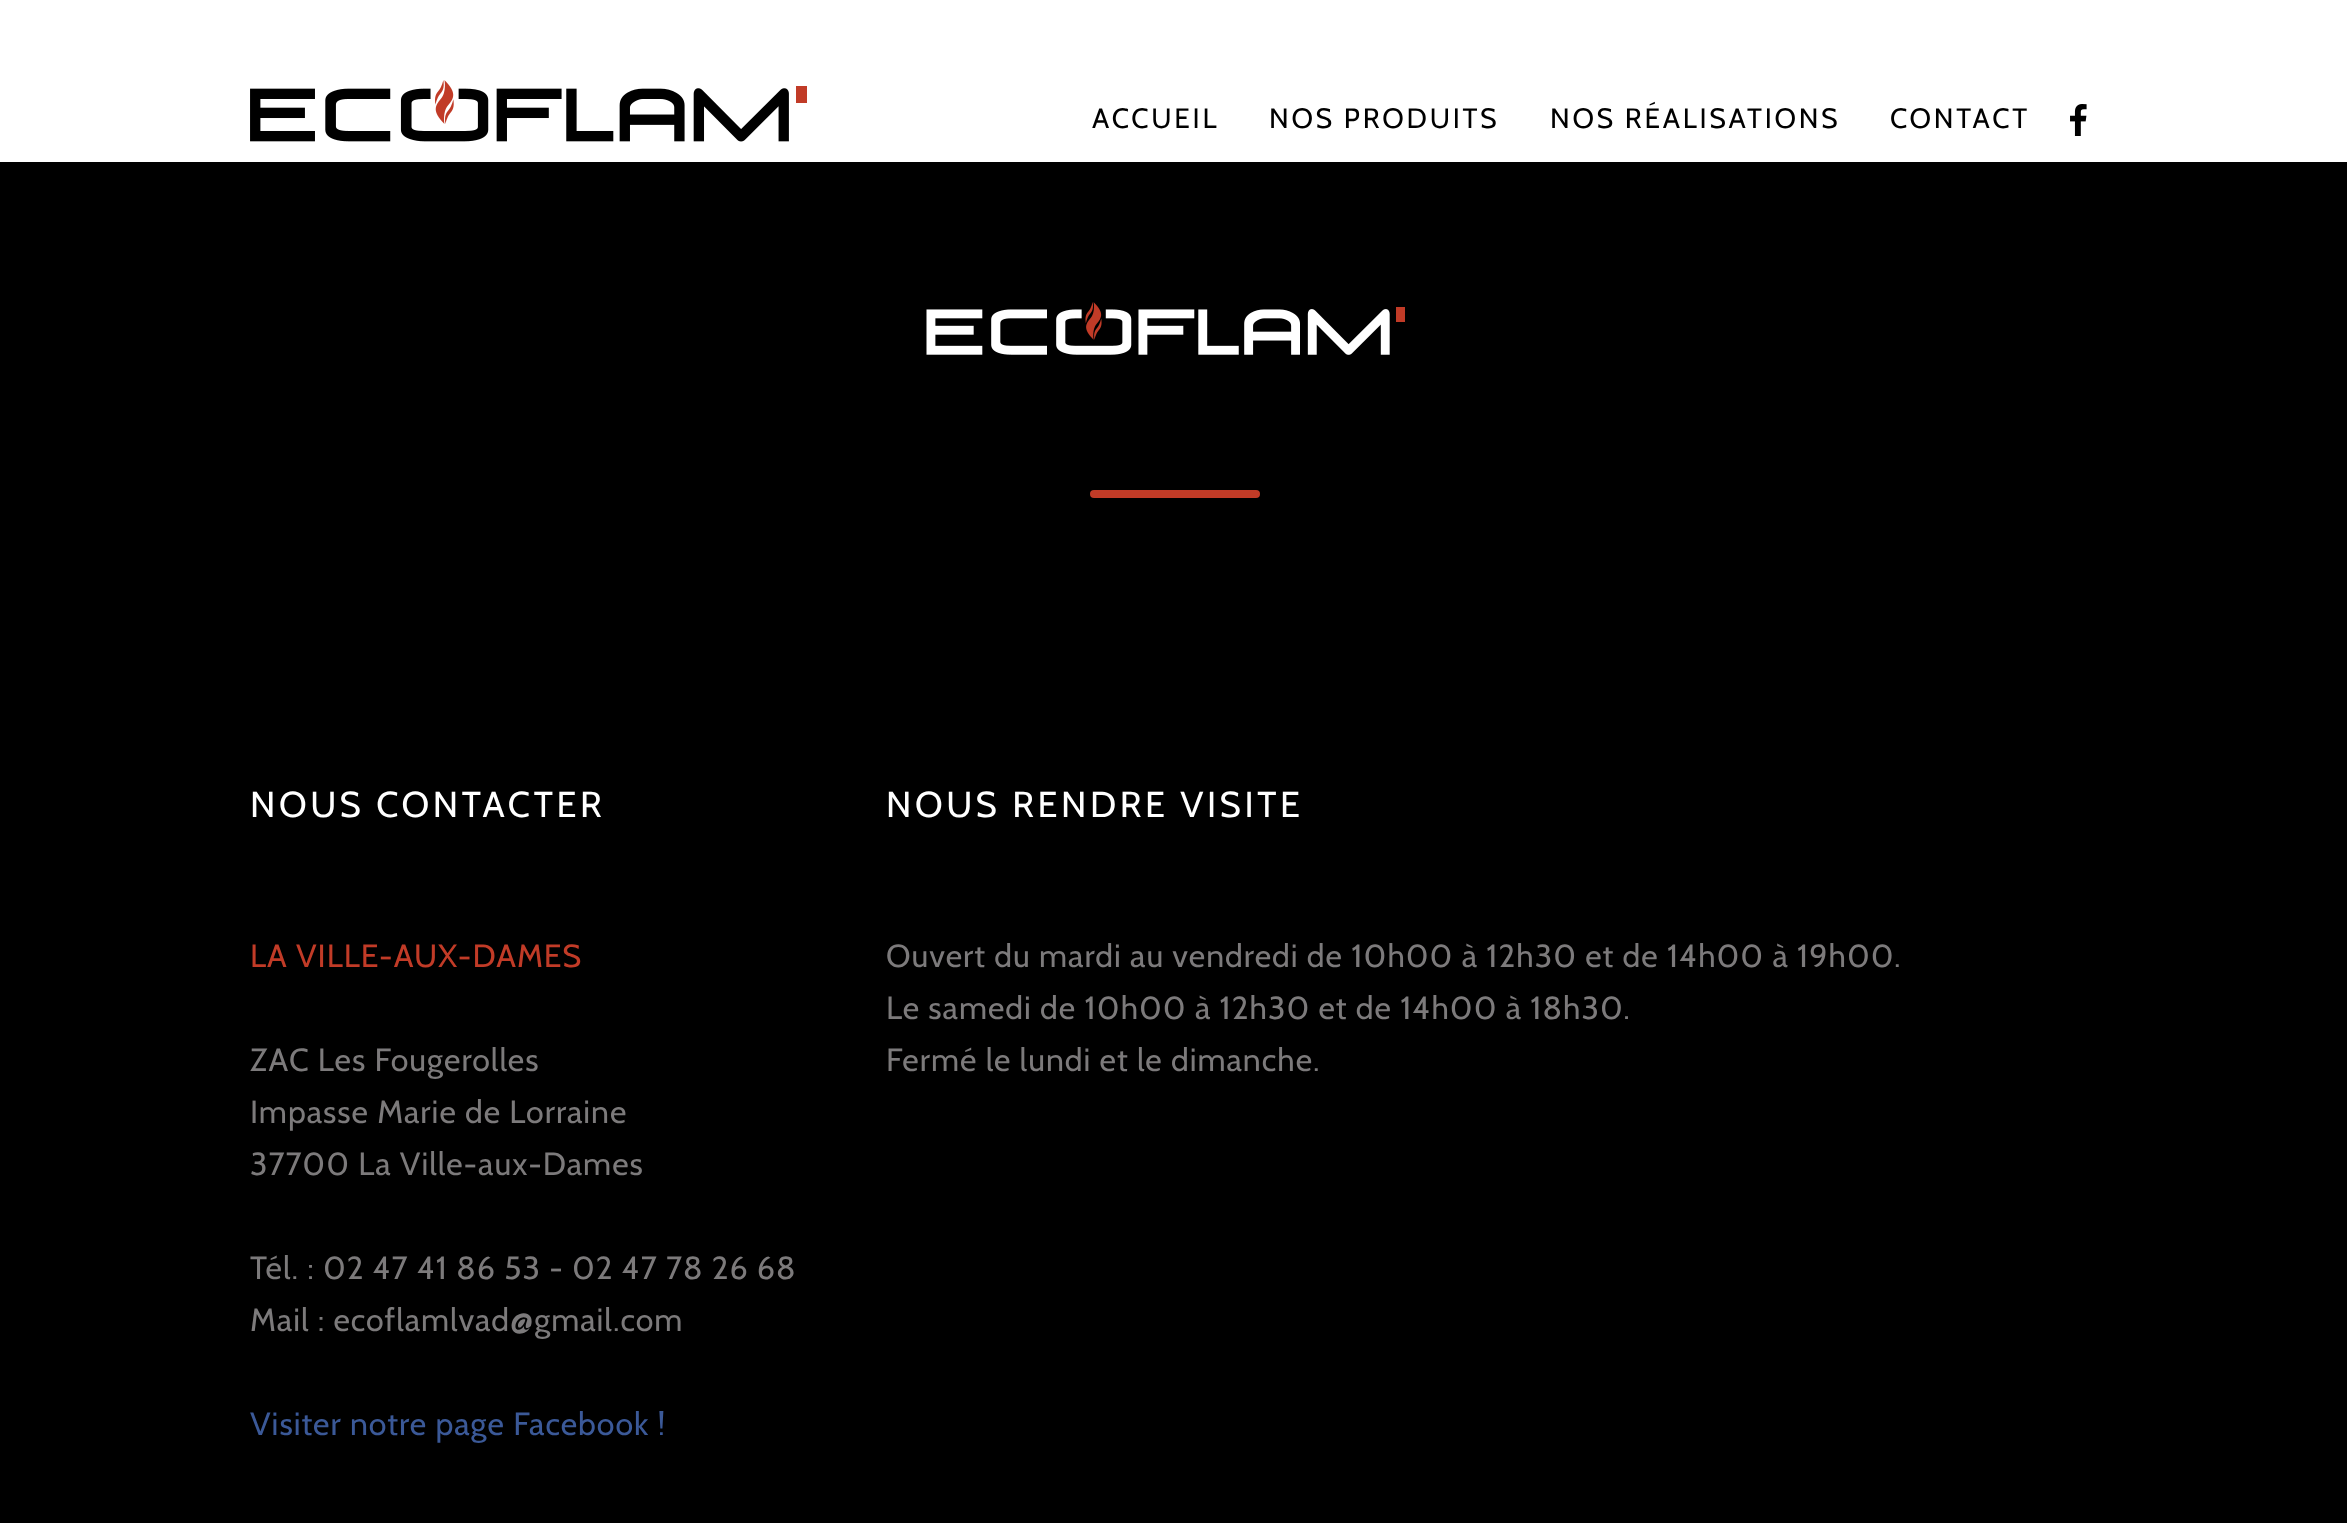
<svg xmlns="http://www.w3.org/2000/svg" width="2347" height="1523">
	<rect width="100%" height="100%" fill="#FFFFFF" />
	<image x="250" y="80" width="557" height="62" href="assets/img1.png" />
	<g font-family="Cabin" font-size="28" letter-spacing="2.75" fill="#000000">
		<text x="1092" y="128">ACCUEIL</text>
		<text x="1269" y="128">NOS PRODUITS</text>
		<text x="1550" y="128">NOS RÉALISATIONS</text>
		<text x="1890" y="128">CONTACT</text>
	</g>
	<image x="2070" y="104" width="17" height="32" href="assets/img2.png" />
	<rect x="0" y="162" width="2347" height="1361" fill="#000000" />
	<image x="926" y="302" width="479" height="53" href="assets/img3.png" />
	<rect x="1090" y="490" width="170" height="8" rx="4" fill="#C13B27" />
	<text x="250" y="817" font-family="Cabin" font-size="36" letter-spacing="3.6" fill="#FFFFFF">NOUS CONTACTER</text>
	<text x="250" y="967" font-family="Cabin" font-size="32" letter-spacing="1" fill="#C13B27">LA VILLE-AUX-DAMES</text>
	<g font-family="Cabin" font-size="32" letter-spacing="1" fill="#7C7A7B">
		<text x="250" y="1071">ZAC Les Fougerolles</text>
		<text x="250" y="1123">Impasse Marie de Lorraine</text>
		<text x="250" y="1175">37700 La Ville-aux-Dames</text>
		<text x="250" y="1279">Tél. : 02 47 41 86 53 - 02 47 78 26 68</text>
		<text x="250" y="1331">Mail : ecoflamlvad@gmail.com</text>
	</g>
	<text x="250" y="1435" font-family="Cabin" font-size="32" letter-spacing="1" fill="#3B5998">Visiter notre page Facebook !</text>
	<text x="886" y="817" font-family="Cabin" font-size="36" letter-spacing="3.6" fill="#FFFFFF">NOUS RENDRE VISITE</text>
	<g font-family="Cabin" font-size="32" letter-spacing="1" fill="#7C7A7B">
		<text x="886" y="967">Ouvert du mardi au vendredi de 10h00 à 12h30 et de 14h00 à 19h00.</text>
		<text x="886" y="1019">Le samedi de 10h00 à 12h30 et de 14h00 à 18h30.</text>
		<text x="886" y="1071">Fermé le lundi et le dimanche.</text>
	</g>
</svg>
